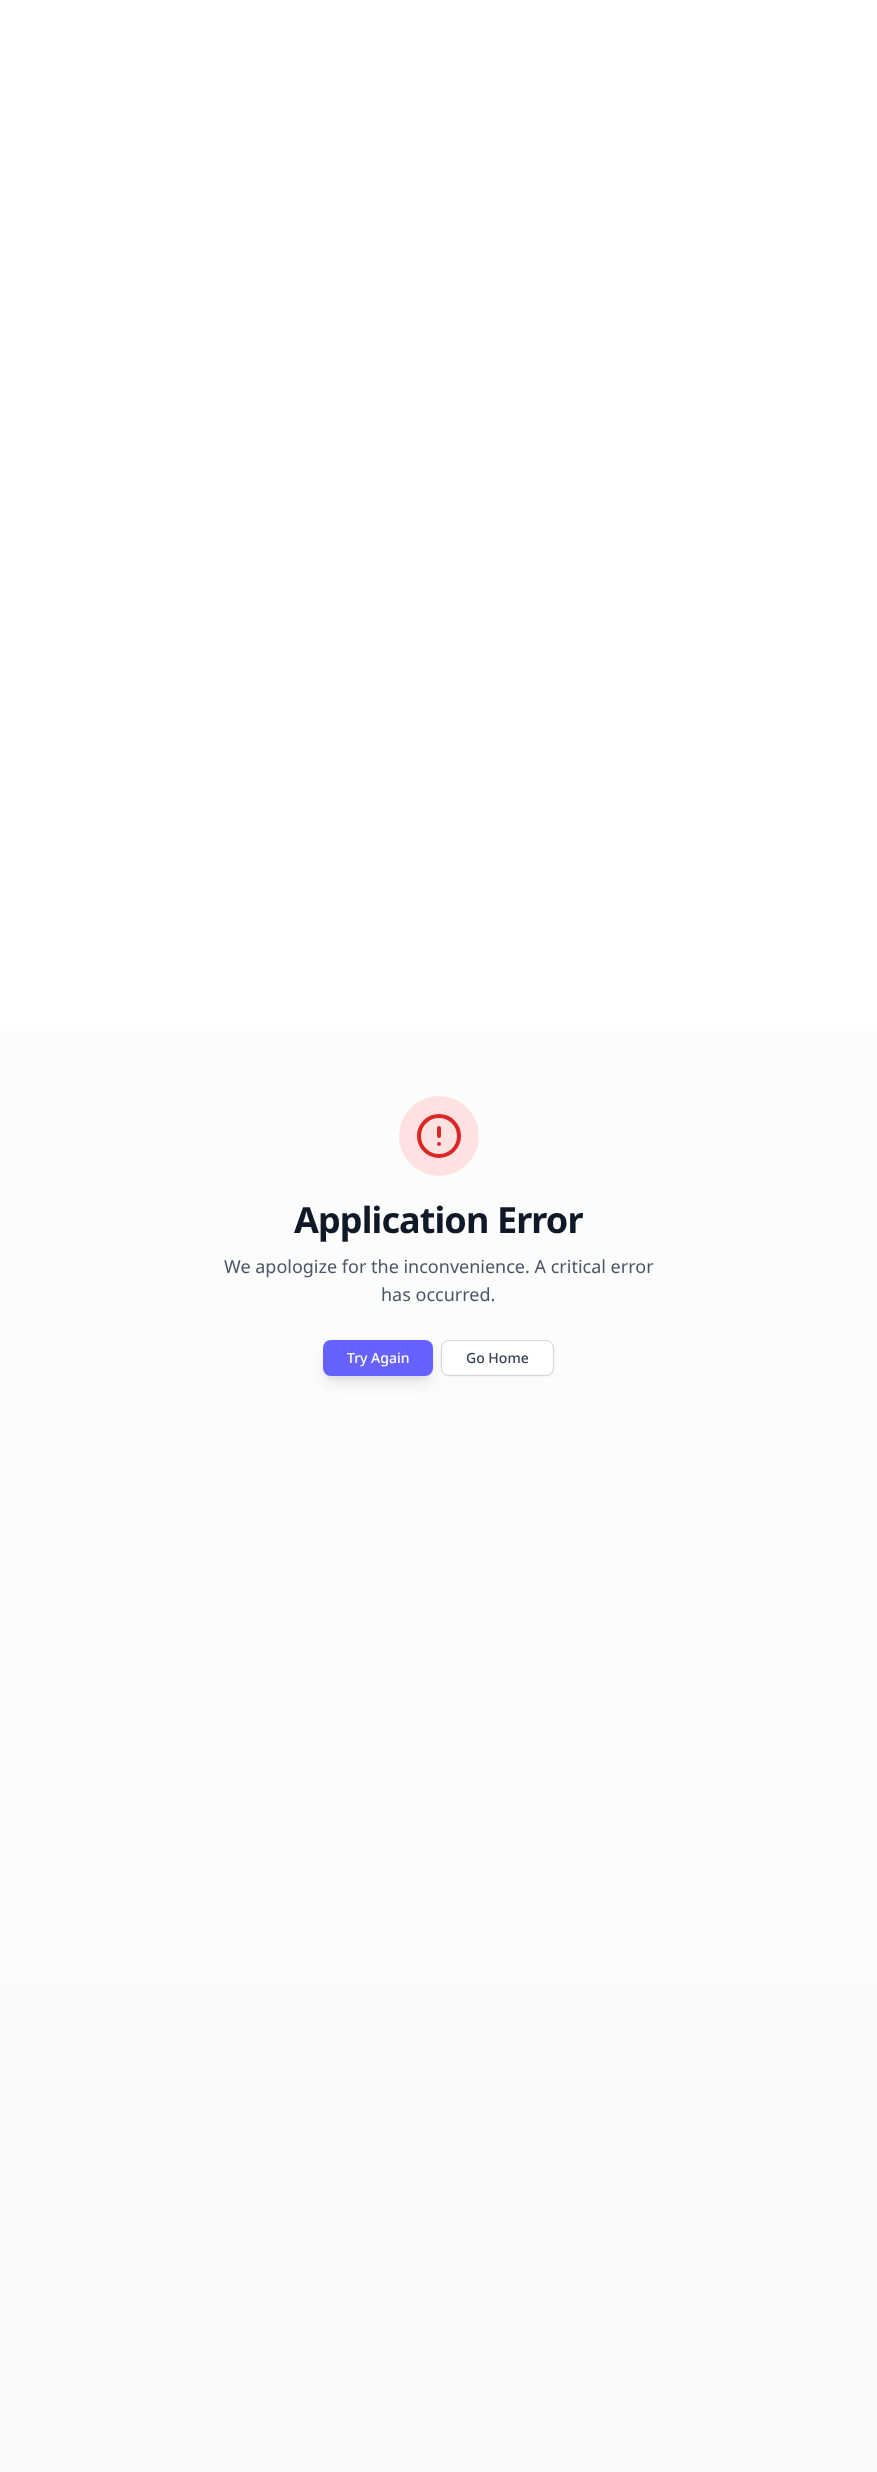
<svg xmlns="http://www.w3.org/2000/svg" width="877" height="2472">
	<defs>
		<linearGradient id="g1" gradientUnits="userSpaceOnUse" x1="438" y1="0" x2="439" y2="2472"><stop offset="0" stop-color="#FFFFFF" /><stop offset="1" stop-color="#F9FAFB" /></linearGradient>
	</defs>
	<rect width="100%" height="100%" fill="#FFFFFF" />
	<rect x="0" y="1030" width="877" height="1442" fill="url(#g1)" />
	<circle cx="439" cy="1136" r="40" fill="#FEE2E2" />
	<circle cx="439" cy="1136" r="20" fill="none" stroke="#DC2626" stroke-width="4" />
	<path d="M439 1128V1136M439 1144H439" fill="none" stroke="#DC2626" stroke-width="4" stroke-linecap="round" stroke-linejoin="round" />
	<text x="294" y="1233" font-family="Noto Sans" font-size="36" font-weight="700" letter-spacing="-0.9" fill="#111827">Application Error</text>
	<g font-family="Noto Sans" font-size="18" fill="#4B5563">
		<text x="224" y="1273">We apologize for the inconvenience. A critical error</text>
		<text x="381" y="1301">has occurred.</text>
	</g>
	<rect x="327" y="1348" width="102" height="28" rx="4" fill="#000000" fill-opacity="0.1" filter="blur(3px)" />
	<rect x="326" y="1353" width="104" height="30" rx="5" fill="#000000" fill-opacity="0.1" filter="blur(7.5px)" />
	<rect x="323" y="1340" width="110" height="36" rx="8" fill="#6661FF" />
	<text x="347" y="1363" font-family="Noto Sans" font-size="14" font-weight="500" fill="#FFFFFF">Try Again</text>
	<rect x="441" y="1341" width="113" height="36" rx="8" fill="#000000" fill-opacity="0.05" filter="blur(1px)" />
	<rect x="441.5" y="1340.5" width="112" height="35" rx="7.5" fill="#FFFFFF" stroke="#D1D5DB" />
	<text x="466" y="1363" font-family="Noto Sans" font-size="14" font-weight="500" fill="#374151">Go Home</text>
</svg>
